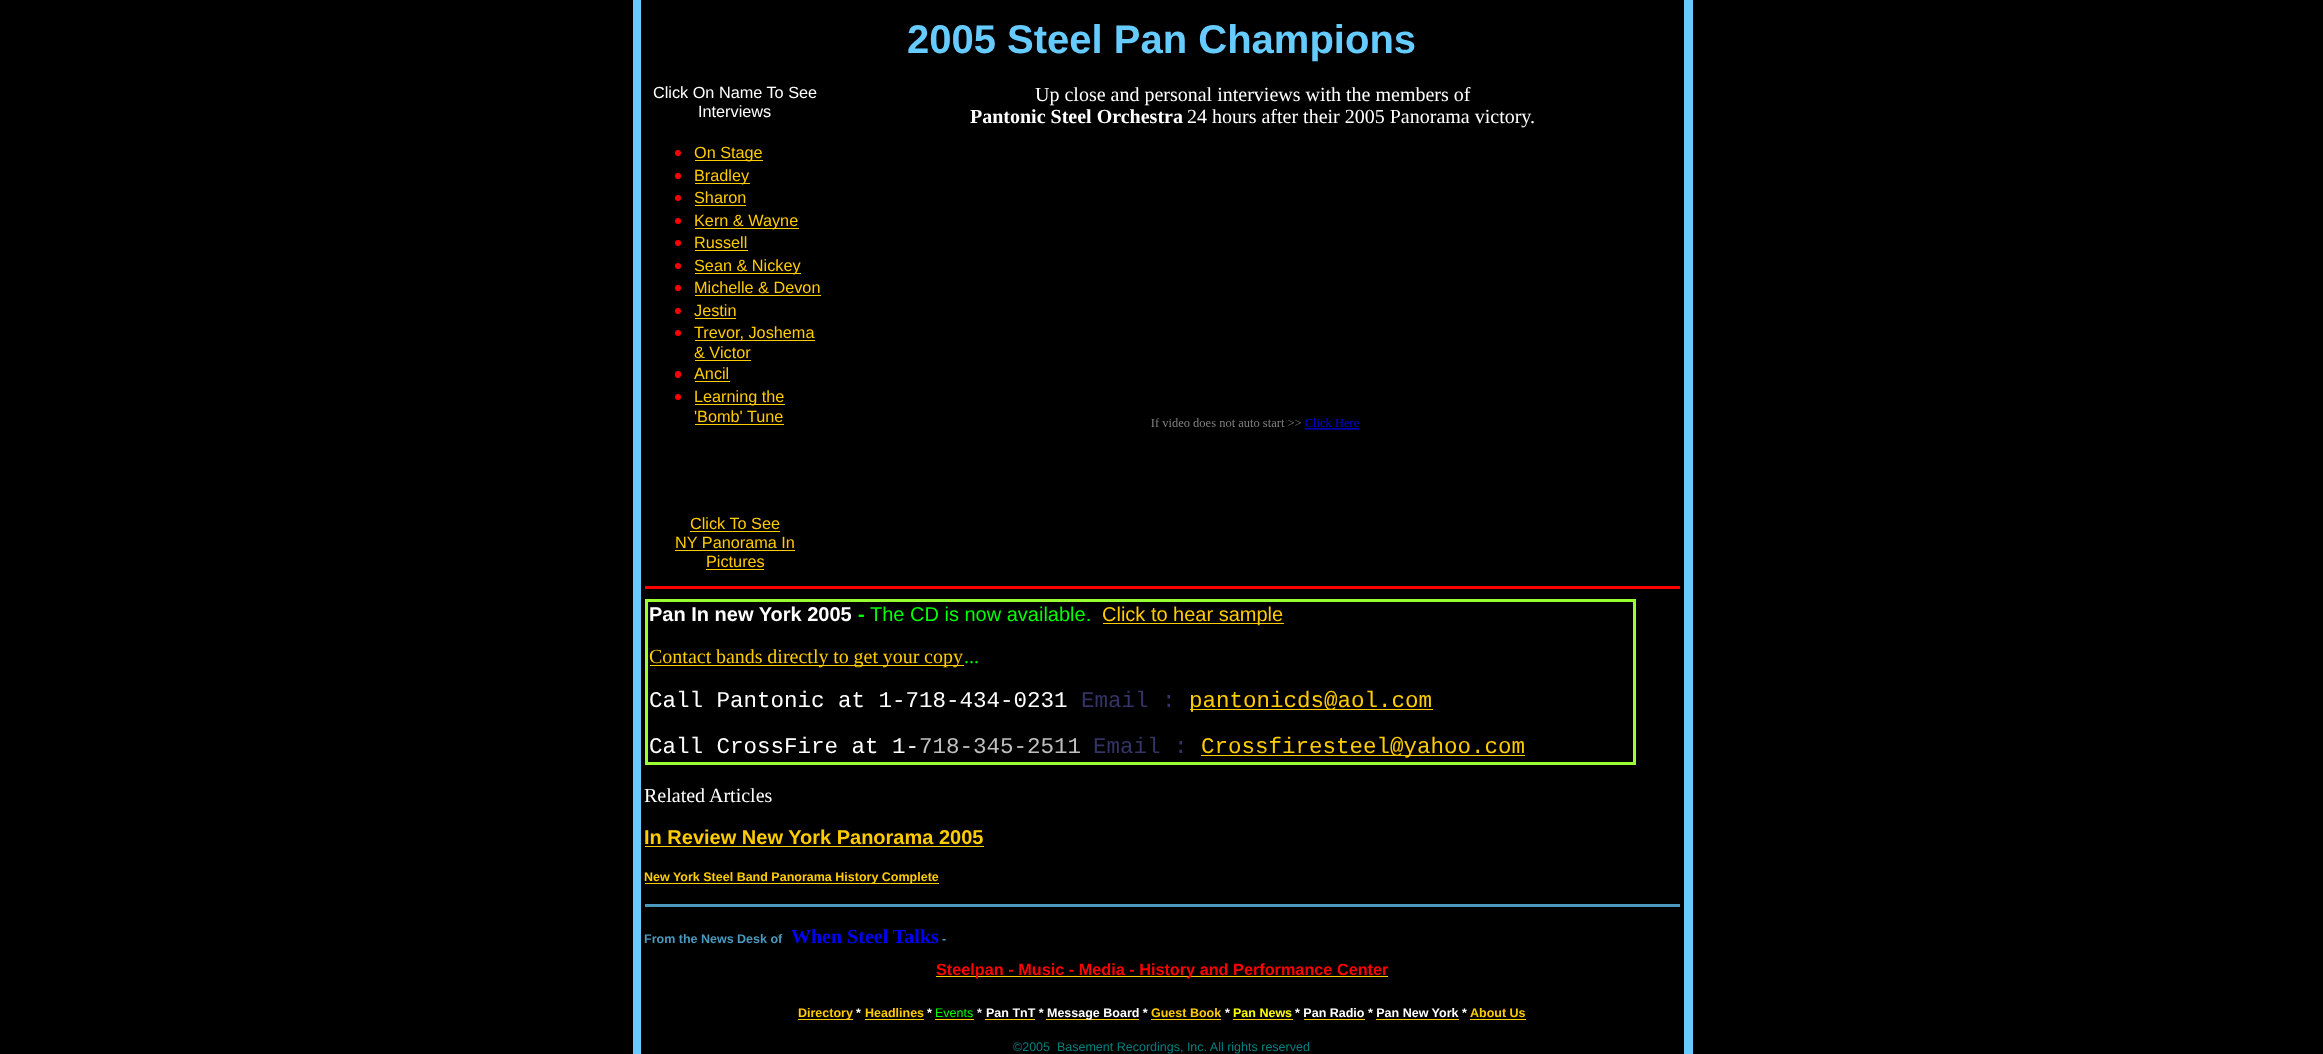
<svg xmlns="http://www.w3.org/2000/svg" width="2323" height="1054">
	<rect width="100%" height="100%" fill="#000000" />
	<rect x="1684" y="0" width="9" height="1054" fill="#66CCFF" />
	<rect x="633" y="0" width="8" height="1054" fill="#66CCFF" />
	<text x="907" y="53" font-family="Liberation Sans" font-size="40" font-weight="700" fill="#66CCFF">2005 Steel Pan Champions</text>
	<g font-family="Liberation Sans" font-size="16.25" fill="#FFFFFF">
		<text x="653" y="98">Click On Name To See</text>
		<text x="698" y="117">Interviews</text>
	</g>
	<circle cx="678" cy="153" r="3" fill="#FF0000" />
	<rect x="695" y="160" width="68" height="1" fill="#FFCC00" />
	<text x="694" y="158" font-family="Liberation Sans" font-size="16.25" fill="#FFCC00">On Stage</text>
	<circle cx="678" cy="176" r="3" fill="#FF0000" />
	<rect x="695" y="183" width="55" height="1" fill="#FFCC00" />
	<text x="694" y="181" font-family="Liberation Sans" font-size="16.25" fill="#FFCC00">Bradley</text>
	<circle cx="678" cy="198" r="3" fill="#FF0000" />
	<text x="694" y="203" font-family="Liberation Sans" font-size="16.25" fill="#FFCC00">Sharon</text>
	<rect x="695" y="205" width="51" height="1" fill="#FFCC00" />
	<circle cx="678" cy="221" r="3" fill="#FF0000" />
	<rect x="695" y="228" width="104" height="1" fill="#FFCC00" />
	<text x="694" y="226" font-family="Liberation Sans" font-size="16.25" fill="#FFCC00">Kern &amp; Wayne</text>
	<circle cx="678" cy="243" r="3" fill="#FF0000" />
	<text x="694" y="248" font-family="Liberation Sans" font-size="16.25" fill="#FFCC00">Russell</text>
	<rect x="695" y="250" width="53" height="1" fill="#FFCC00" />
	<circle cx="678" cy="266" r="3" fill="#FF0000" />
	<rect x="695" y="273" width="106" height="1" fill="#FFCC00" />
	<text x="694" y="271" font-family="Liberation Sans" font-size="16.25" fill="#FFCC00">Sean &amp; Nickey</text>
	<circle cx="678" cy="288" r="3" fill="#FF0000" />
	<text x="694" y="293" font-family="Liberation Sans" font-size="16.25" fill="#FFCC00">Michelle &amp; Devon</text>
	<rect x="695" y="295" width="126" height="1" fill="#FFCC00" />
	<circle cx="678" cy="311" r="3" fill="#FF0000" />
	<text x="694" y="316" font-family="Liberation Sans" font-size="16.25" fill="#FFCC00">Jestin</text>
	<rect x="695" y="318" width="41" height="1" fill="#FFCC00" />
	<circle cx="678" cy="333" r="3" fill="#FF0000" />
	<rect x="695" y="340" width="120" height="1" fill="#FFCC00" />
	<g font-family="Liberation Sans" font-size="16.25" fill="#FFCC00">
		<text x="694" y="338">Trevor, Joshema</text>
		<text x="694" y="358">&amp; Victor</text>
	</g>
	<rect x="695" y="360" width="56" height="1" fill="#FFCC00" />
	<rect x="675" y="371" width="6" height="7" rx="3" fill="#FF0000" />
	<text x="694" y="379" font-family="Liberation Sans" font-size="16.25" fill="#FFCC00">Ancil</text>
	<rect x="695" y="381" width="35" height="1" fill="#FFCC00" />
	<circle cx="678" cy="397" r="3" fill="#FF0000" />
	<rect x="695" y="404" width="90" height="1" fill="#FFCC00" />
	<g font-family="Liberation Sans" font-size="16.25" fill="#FFCC00">
		<text x="694" y="402">Learning the</text>
		<text x="694" y="422">'Bomb' Tune</text>
	</g>
	<rect x="695" y="424" width="89" height="1" fill="#FFCC00" />
	<text x="1035" y="101" font-family="Liberation Serif" font-size="20" fill="#FFFFFF">Up close and personal interviews with the members of</text>
	<text x="970" y="123" font-family="Liberation Serif" font-size="20" font-weight="700" fill="#FFFFFF">Pantonic Steel Orchestra</text>
	<text x="1187" y="123" font-family="Liberation Serif" font-size="20" fill="#FFFFFF">24 hours after their 2005 Panorama victory.</text>
	<image x="1151" y="418" width="209" height="12" href="assets/img1.png" />
	<text x="690" y="529" font-family="Liberation Sans" font-size="16.25" fill="#FFCC00">Click To See</text>
	<rect x="690" y="531" width="90" height="1" fill="#FFCC00" />
	<text x="675" y="548" font-family="Liberation Sans" font-size="16.25" fill="#FFCC00">NY Panorama In</text>
	<rect x="675" y="550" width="120" height="1" fill="#FFCC00" />
	<text x="706" y="567" font-family="Liberation Sans" font-size="16.25" fill="#FFCC00">Pictures</text>
	<rect x="706" y="569" width="58" height="1" fill="#FFCC00" />
	<rect x="645" y="586" width="1035" height="3" fill="#FF0000" />
	<rect x="646.5" y="600.5" width="988" height="163" fill="none" stroke="#99FF33" stroke-width="3" />
	<text x="649" y="621" font-family="Liberation Sans" font-size="20" font-weight="700" fill="#FFFFFF">Pan In new York 2005</text>
	<text x="858" y="621" font-family="Liberation Sans" font-size="20" font-weight="700" fill="#00FF00">-</text>
	<text x="870" y="621" font-family="Liberation Sans" font-size="20" fill="#00FF00">The CD is now available.</text>
	<rect x="1103" y="623" width="181" height="1" fill="#FFCC00" />
	<text x="1102" y="621" font-family="Liberation Sans" font-size="20" fill="#FFCC00">Click to hear sample</text>
	<rect x="650" y="665" width="314" height="1" fill="#FFCC00" />
	<text x="649" y="663" word-spacing="-0.25" font-family="Liberation Serif" font-size="20" fill="#FFCC00">Contact bands directly to get your copy</text>
	<text x="964" y="663" font-family="Liberation Serif" font-size="20" fill="#00FF00">...</text>
	<text x="649" y="707" font-family="Liberation Mono" font-size="22.5" fill="#FFFFFF">Call Pantonic at 1-718-434-0231</text>
	<text x="1081" y="707" font-family="Liberation Mono" font-size="22.5" fill="#333366">Email :</text>
	<rect x="1190" y="709" width="243" height="1" fill="#FFCC00" />
	<text x="1189" y="707" font-family="Liberation Mono" font-size="22.5" fill="#FFCC00">pantonicds@aol.com</text>
	<text x="649" y="753" font-family="Liberation Mono" font-size="22.5" fill="#FFFFFF">Call CrossFire at 1-</text>
	<text x="919" y="753" font-family="Liberation Mono" font-size="22.5" fill="#C0C0C0">718-345-2511</text>
	<text x="1093" y="753" font-family="Liberation Mono" font-size="22.5" fill="#333366">Email :</text>
	<rect x="1201" y="755" width="324" height="1" fill="#FFCC00" />
	<text x="1201" y="753" font-family="Liberation Mono" font-size="22.5" fill="#FFCC00">Crossfiresteel@yahoo.com</text>
	<text x="644" y="802" font-family="Liberation Serif" font-size="20" fill="#FFFFFF">Related Articles</text>
	<text x="644" y="844" font-family="Liberation Sans" font-size="20" font-weight="700" fill="#FFCC00">In Review New York Panorama 2005</text>
	<rect x="645" y="846" width="339" height="1" fill="#FFCC00" />
	<rect x="645" y="883" width="294" height="1" fill="#FFCC00" />
	<text x="644" y="881" font-family="Liberation Sans" font-size="12.5" font-weight="700" fill="#FFCC00">New York Steel Band Panorama History Complete</text>
	<rect x="645" y="904" width="1035" height="3" fill="#4C99BF" />
	<text x="644" y="943" font-family="Liberation Sans" font-size="12.5" font-weight="700" fill="#4C99BF">From the News Desk of</text>
	<text x="791" y="943" font-family="Liberation Serif" font-size="20" font-weight="700" fill="#0000FF">When Steel Talks</text>
	<text x="942" y="943" font-family="Liberation Sans" font-size="12.5" font-weight="700" fill="#4C99BF">-</text>
	<rect x="936" y="976" width="452" height="1" fill="#FFCC00" />
	<text x="936" y="975" font-family="Liberation Sans" font-size="16.25" font-weight="700" fill="#FF0000">Steelpan - Music - Media - History and Performance Center</text>
	<rect x="798" y="1019" width="55" height="1" fill="#FFCC00" />
	<text x="798" y="1017" font-family="Liberation Sans" font-size="12.5" font-weight="700" fill="#FFCC00">Directory</text>
	<text x="856" y="1017" font-family="Liberation Sans" font-size="12.5" font-weight="700" fill="#FFFFFF">*</text>
	<text x="865" y="1017" font-family="Liberation Sans" font-size="12.5" font-weight="700" fill="#FFCC00">Headlines</text>
	<rect x="865" y="1019" width="59" height="1" fill="#FFCC00" />
	<text x="927" y="1017" font-family="Liberation Sans" font-size="12.5" font-weight="700" fill="#FFFFFF">*</text>
	<text x="935" y="1017" font-family="Liberation Sans" font-size="12.5" fill="#00FF00">Events</text>
	<rect x="935" y="1019" width="39" height="1" fill="#FFCC00" />
	<text x="977" y="1017" font-family="Liberation Sans" font-size="12.5" font-weight="700" fill="#E9E8ED">*</text>
	<text x="986" y="1017" font-family="Liberation Sans" font-size="12.5" font-weight="700" fill="#FFFFFF">Pan TnT *</text>
	<rect x="985" y="1019" width="50" height="1" fill="#FFCC00" />
	<rect x="1046" y="1019" width="93" height="1" fill="#FFCC00" />
	<text x="1047" y="1017" font-family="Liberation Sans" font-size="12.5" font-weight="700" fill="#FFFFFF">Message Board *</text>
	<text x="1151" y="1017" font-family="Liberation Sans" font-size="12.5" font-weight="700" fill="#FFCC00">Guest Book</text>
	<rect x="1151" y="1019" width="70" height="1" fill="#FFCC00" />
	<text x="1225" y="1017" font-family="Liberation Sans" font-size="12.5" font-weight="700" fill="#FFFFFF">*</text>
	<text x="1233" y="1017" font-family="Liberation Sans" font-size="12.5" font-weight="700" fill="#FFFF00">Pan News</text>
	<rect x="1233" y="1019" width="60" height="1" fill="#FFCC00" />
	<text x="1295" y="1017" font-family="Liberation Sans" font-size="12.5" font-weight="700" fill="#FFFFFF">* Pan Radio * Pan New York *</text>
	<rect x="1304" y="1019" width="61" height="1" fill="#FFCC00" />
	<rect x="1376" y="1019" width="83" height="1" fill="#FFCC00" />
	<text x="1470" y="1017" font-family="Liberation Sans" font-size="12.5" font-weight="700" fill="#FFCC00">About Us</text>
	<rect x="1470" y="1019" width="56" height="1" fill="#FFCC00" />
	<text x="1013" y="1051" font-family="Liberation Sans" font-size="12.5" fill="#008080" xml:space="preserve">©2005  Basement Recordings, Inc. All rights reserved</text>
</svg>
